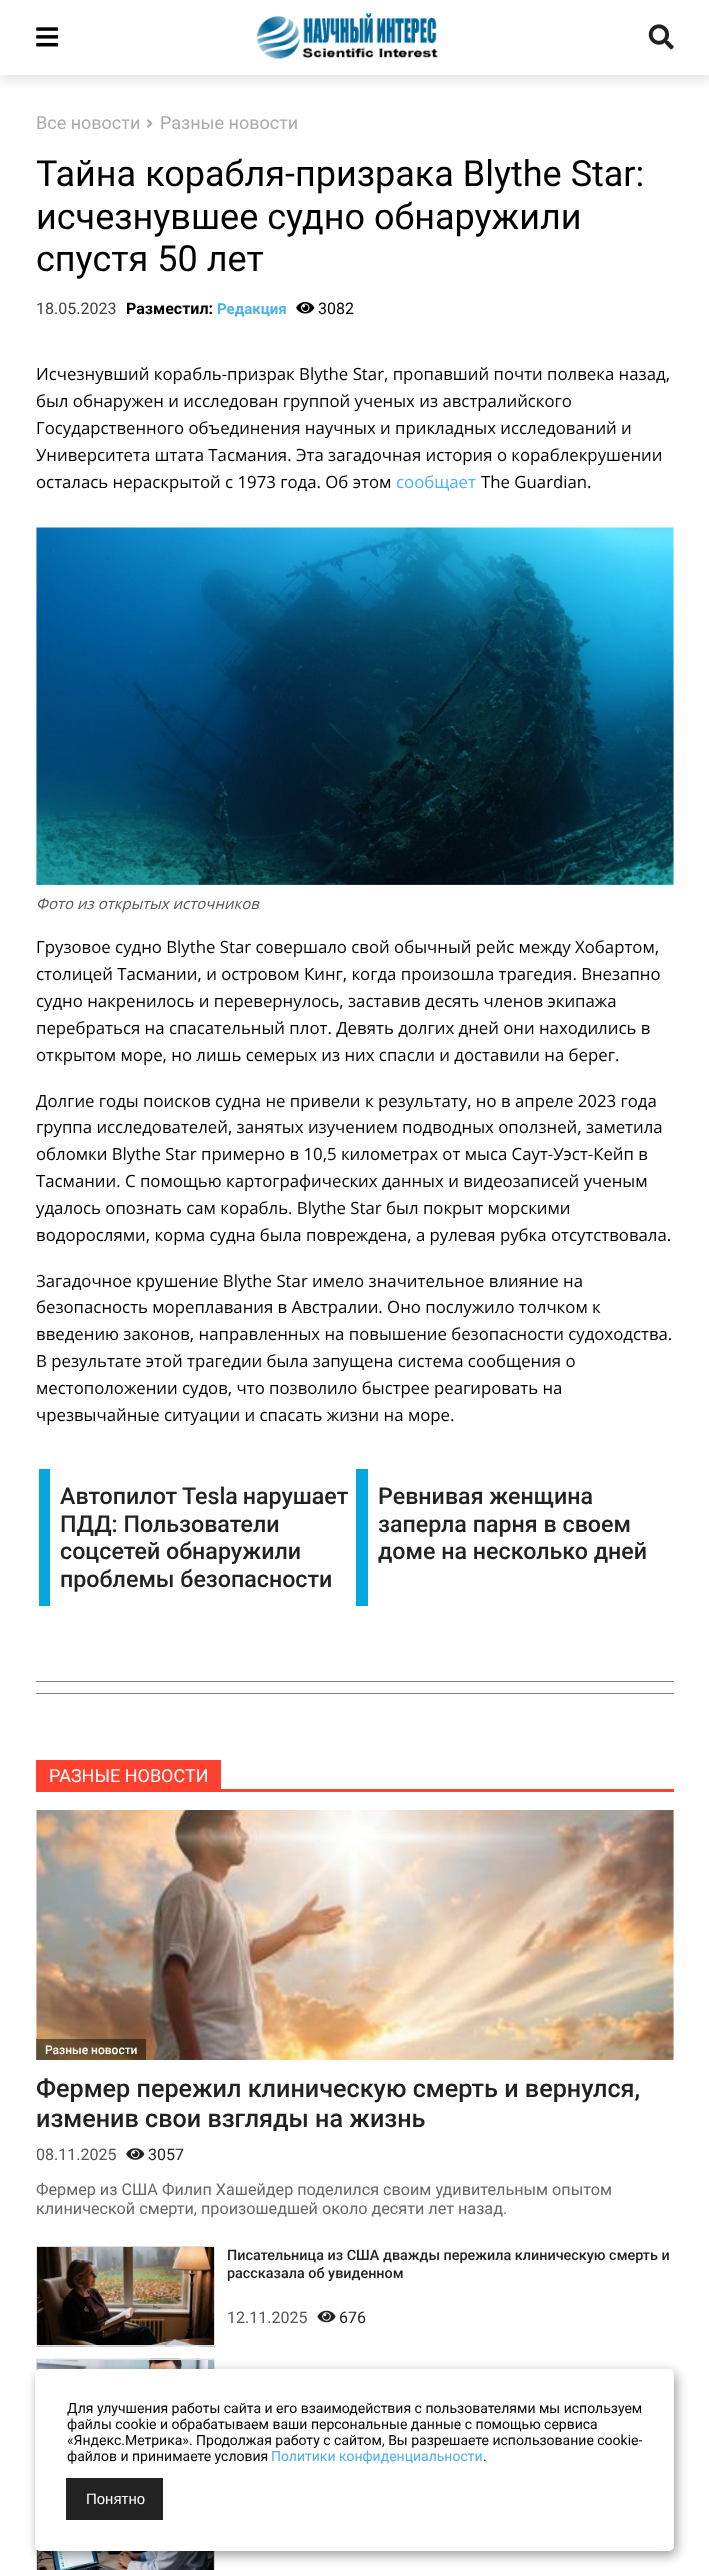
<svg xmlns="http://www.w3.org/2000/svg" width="709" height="2570">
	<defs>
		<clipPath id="clip1"><rect x="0" y="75" width="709" height="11" /></clipPath>
	</defs>
	<rect width="100%" height="100%" fill="#FFFFFF" />
	<g clip-path="url(#clip1)">
		<rect x="0" y="6" width="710" height="75" fill="#000000" fill-opacity="0.1" filter="blur(6px)" />
	</g>
	<image x="36" y="27" width="23" height="20" href="assets/img1.png" />
	<image x="255" y="7" width="186" height="53" href="assets/img2.png" />
	<image x="648" y="24" width="26" height="26" href="assets/img3.png" />
	<text x="36" y="129" font-family="Roboto" font-size="18" fill="#AAAAAA">Все новости</text>
	<image x="147" y="119" width="6" height="9" href="assets/img4.png" />
	<text x="160" y="129" font-family="Roboto" font-size="18" fill="#AAAAAA">Разные новости</text>
	<g font-family="Roboto" font-size="36" fill="#000000">
		<text x="36" y="186">Тайна корабля-призрака Blythe Star:</text>
		<text x="36" y="229">исчезнувшее судно обнаружили</text>
		<text x="36" y="271">спустя 50 лет</text>
	</g>
	<text x="36" y="314" font-family="Roboto" font-size="16" fill="#404040">18.05.2023</text>
	<text x="126" y="314" font-family="Roboto" font-size="16" font-weight="700" fill="#000000">Разместил:</text>
	<text x="217" y="314" font-family="Roboto" font-size="15" font-weight="700" fill="#4DB2EC">Редакция</text>
	<image x="296" y="302" width="19" height="12" href="assets/img5.png" />
	<text x="318" y="314" font-family="Roboto" font-size="16" fill="#000000">3082</text>
	<g font-family="Open Sans" font-size="16.8" fill="#000000">
		<text x="36" y="380">Исчезнувший корабль-призрак Blythe Star, пропавший почти полвека назад,</text>
		<text x="36" y="407">был обнаружен и исследован группой ученых из австралийского</text>
		<text x="36" y="434">Государственного объединения научных и прикладных исследований и</text>
		<text x="36" y="461">Университета штата Тасмания. Эта загадочная история о кораблекрушении</text>
		<text x="36" y="488">осталась нераскрытой с 1973 года. Об этом</text>
	</g>
	<text x="396" y="488" font-family="Open Sans" font-size="16.8" fill="#4DB2EC">сообщает</text>
	<text x="481" y="488" font-family="Open Sans" font-size="16.8" fill="#000000">The Guardian.</text>
	<image x="36" y="527" width="638" height="358" href="assets/img6.png" />
	<text x="36" y="909" font-family="Open Sans" font-size="15" font-style="italic" fill="#555555">Фото из открытых источников</text>
	<g font-family="Open Sans" font-size="16.8" fill="#000000">
		<text x="36" y="953">Грузовое судно Blythe Star совершало свой обычный рейс между Хобартом,</text>
		<text x="36" y="980">столицей Тасмании, и островом Кинг, когда произошла трагедия. Внезапно</text>
		<text x="36" y="1007">судно накренилось и перевернулось, заставив десять членов экипажа</text>
		<text x="36" y="1034">перебраться на спасательный плот. Девять долгих дней они находились в</text>
		<text x="36" y="1061">открытом море, но лишь семерых из них спасли и доставили на берег.</text>
		<text x="36" y="1107">Долгие годы поисков судна не привели к результату, но в апреле 2023 года</text>
		<text x="36" y="1133">группа исследователей, занятых изучением подводных оползней, заметила</text>
		<text x="36" y="1160">обломки Blythe Star примерно в 10,5 километрах от мыса Саут-Уэст-Кейп в</text>
		<text x="36" y="1187">Тасмании. С помощью картографических данных и видеозаписей ученым</text>
		<text x="36" y="1214">удалось опознать сам корабль. Blythe Star был покрыт морскими</text>
		<text x="36" y="1241">водорослями, корма судна была повреждена, а рулевая рубка отсутствовала.</text>
		<text x="36" y="1287">Загадочное крушение Blythe Star имело значительное влияние на</text>
		<text x="36" y="1313">безопасность мореплавания в Австралии. Оно послужило толчком к</text>
		<text x="36" y="1340">введению законов, направленных на повышение безопасности судоходства.</text>
		<text x="36" y="1367">В результате этой трагедии была запущена система сообщения о</text>
		<text x="36" y="1394">местоположении судов, что позволило быстрее реагировать на</text>
		<text x="36" y="1421">чрезвычайные ситуации и спасать жизни на море.</text>
	</g>
	<rect x="39" y="1469" width="11" height="137" fill="#06A6DF" />
	<g font-family="Roboto" font-size="23.25" font-weight="500" fill="#222222">
		<text x="60" y="1504" word-spacing="-1">Автопилот Tesla нарушает</text>
		<text x="60" y="1532">ПДД: Пользователи</text>
		<text x="60" y="1559">соцсетей обнаружили</text>
		<text x="60" y="1587">проблемы безопасности</text>
	</g>
	<rect x="356" y="1469" width="12" height="137" fill="#06A6DF" />
	<g font-family="Roboto" font-size="23.25" font-weight="500" fill="#222222">
		<text x="378" y="1504">Ревнивая женщина</text>
		<text x="378" y="1532">заперла парня в своем</text>
		<text x="378" y="1559">доме на несколько дней</text>
	</g>
	<rect x="36" y="1681" width="638" height="1" fill="#808080" />
	<rect x="36" y="1693" width="638" height="1" fill="#808080" />
	<rect x="36" y="1789" width="638" height="3" fill="#FF4130" />
	<rect x="36" y="1760" width="185" height="29" fill="#FF4130" />
	<text x="49" y="1782" font-family="Roboto" font-size="18" fill="#FFFFFF">РАЗНЫЕ НОВОСТИ</text>
	<image x="36" y="1810" width="638" height="250" href="assets/img7.png" />
	<rect x="36" y="2039" width="110" height="21" fill="#000000" fill-opacity="0.5" />
	<text x="45" y="2054" font-family="Roboto" font-size="12" font-weight="500" fill="#FFFFFF">Разные новости</text>
	<g font-family="Roboto" font-size="25.2" font-weight="500" fill="#222222">
		<text x="36" y="2097">Фермер пережил клиническую смерть и вернулся,</text>
		<text x="36" y="2127">изменив свои взгляды на жизнь</text>
	</g>
	<text x="36" y="2160" font-family="Roboto" font-size="16" fill="#555555">08.11.2025</text>
	<image x="126" y="2148" width="19" height="12" href="assets/img8.png" />
	<text x="148" y="2160" font-family="Roboto" font-size="16" fill="#222222">3057</text>
	<g font-family="Roboto" font-size="16.2" fill="#666666">
		<text x="36" y="2195">Фермер из США Филип Хашейдер поделился своим удивительным опытом</text>
		<text x="36" y="2214">клинической смерти, произошедшей около десяти лет назад.</text>
	</g>
	<image x="36" y="2247" width="179" height="100" href="assets/img9.png" />
	<rect x="36.5" y="2246.5" width="178" height="99" fill="none" stroke="#DFDFDF" />
	<g font-family="Roboto" font-size="14.4" font-weight="500" fill="#222222">
		<text x="227" y="2260">Писательница из США дважды пережила клиническую смерть и</text>
		<text x="227" y="2278">рассказала об увиденном</text>
	</g>
	<text x="227" y="2323" font-family="Roboto" font-size="16" fill="#555555">12.11.2025</text>
	<image x="317" y="2310" width="19" height="13" href="assets/img10.png" />
	<text x="339" y="2323" font-family="Roboto" font-size="16" fill="#222222">676</text>
	<image x="36" y="2358" width="179" height="12" href="assets/img11.png" />
	<rect x="36.5" y="2359.5" width="178" height="99" fill="none" stroke="#DFDFDF" />
	<image x="37" y="2550" width="177" height="20" href="assets/img12.png" />
	<rect x="36.5" y="2471.5" width="178" height="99" fill="none" stroke="#DFDFDF" />
	<rect x="38" y="2373" width="638" height="182" rx="5" fill="#000000" fill-opacity="0.4" filter="blur(6px)" />
	<rect x="35" y="2369" width="639" height="182" rx="5" fill="#FFFFFF" />
	<g font-family="Roboto" font-size="14" fill="#000000">
		<text x="67" y="2413">Для улучшения работы сайта и его взаимодействия с пользователями мы используем</text>
		<text x="67" y="2429">файлы cookie и обрабатываем ваши персональные данные с помощью сервиса</text>
		<text x="67" y="2445">«Яндекс.Метрика». Продолжая работу с сайтом, Вы разрешаете использование cookie-</text>
		<text x="67" y="2461">файлов и принимаете условия</text>
	</g>
	<text x="271" y="2461" font-family="Roboto" font-size="14" fill="#4DB2EC">Политики конфиденциальности</text>
	<text x="483" y="2461" font-family="Roboto" font-size="14" fill="#000000">.</text>
	<rect x="66" y="2478" width="97" height="42" fill="#222222" />
	<text x="86" y="2504" font-family="Liberation Sans" font-size="15" fill="#FFFFFF">Понятно</text>
</svg>
